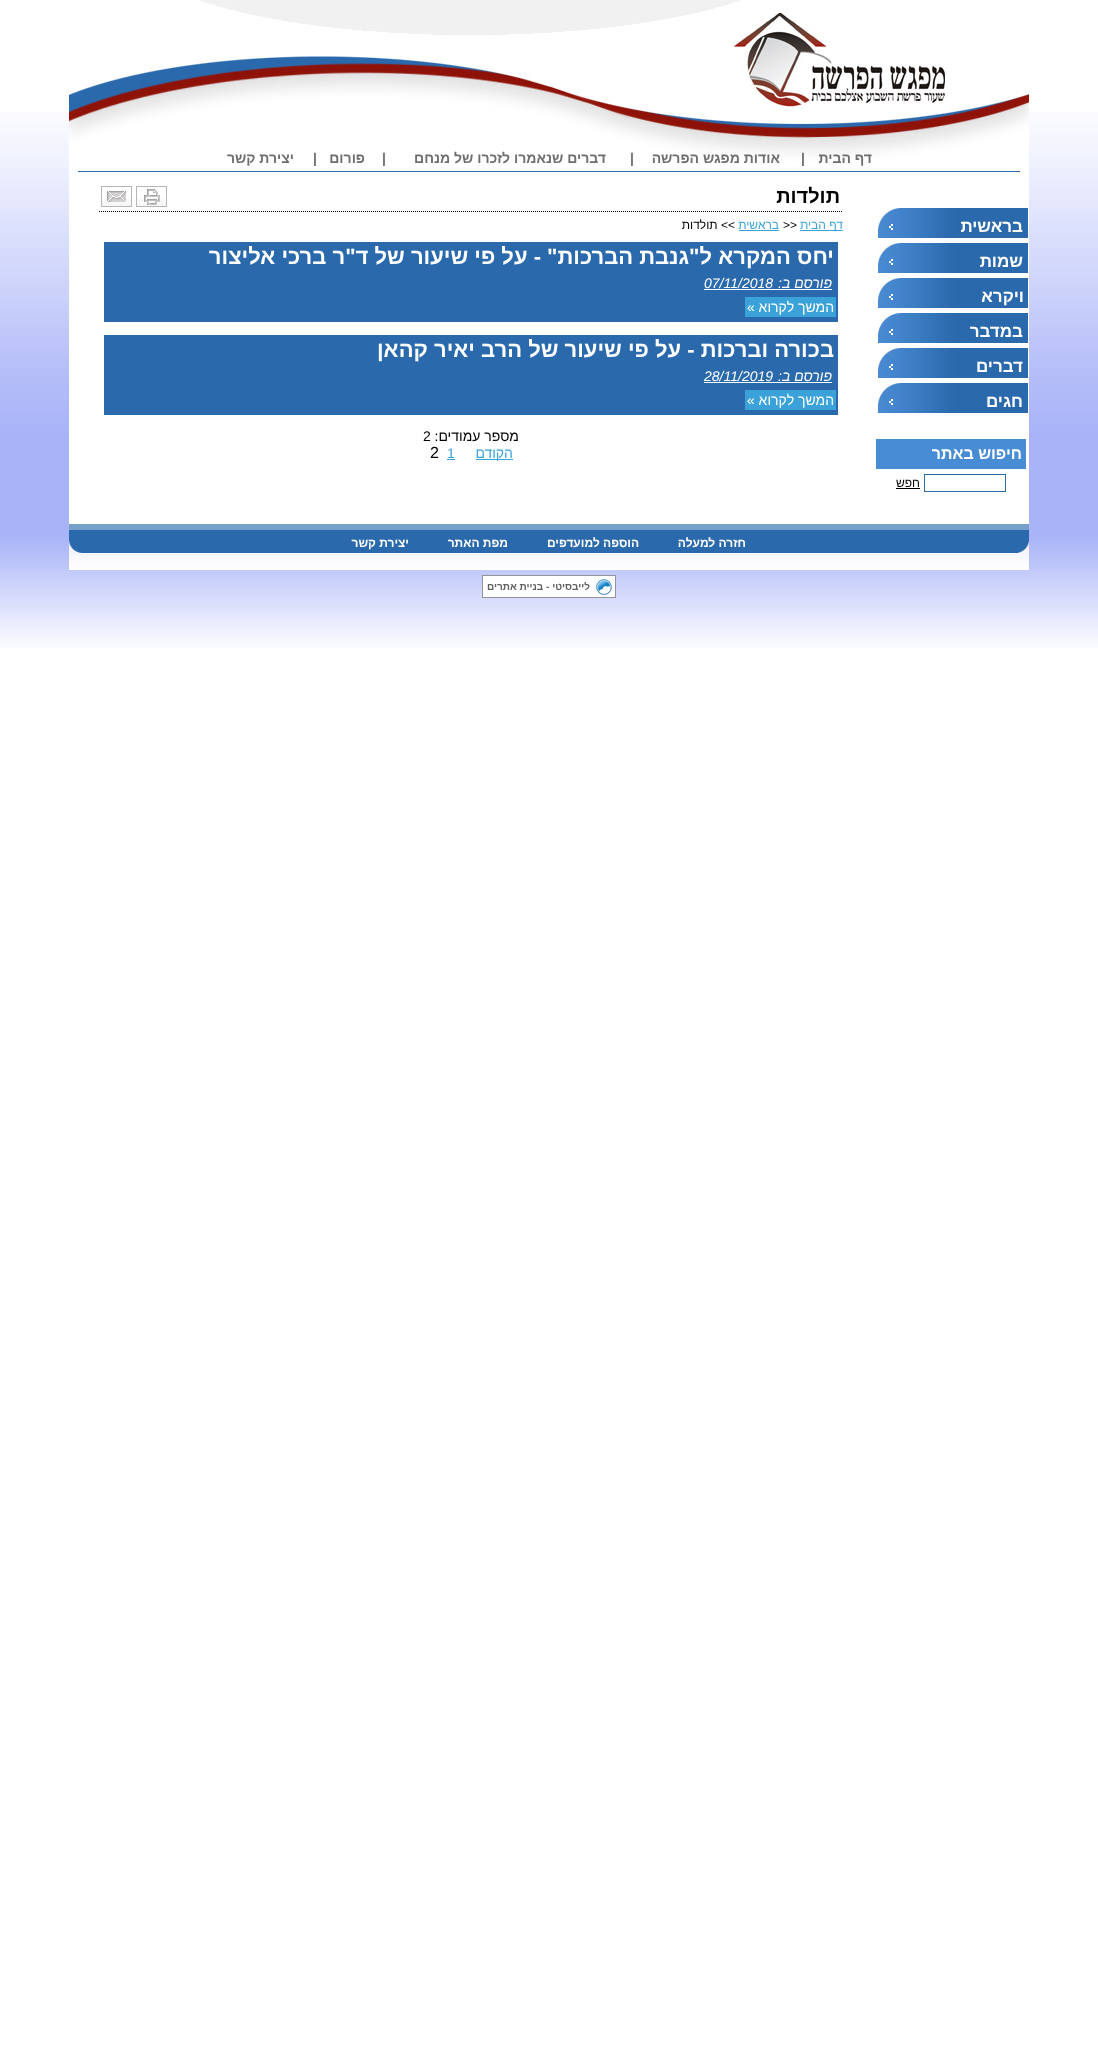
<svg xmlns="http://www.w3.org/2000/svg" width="1098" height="2064">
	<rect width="100%" height="100%" fill="#FFFFFF" />
	<image x="0" y="112" width="1098" height="536" href="assets/img1.png" />
	<image x="69" y="0" width="960" height="143" href="assets/img2.png" />
	<rect x="69" y="143" width="960" height="370" fill="#FFFFFF" />
	<image x="77" y="143" width="944" height="30" href="assets/img3.png" />
	<text x="872" y="163" font-family="Liberation Sans" font-size="14" font-weight="700" direction="rtl" fill="#6E6E6E">דף הבית</text>
	<text x="801" y="163" font-family="Liberation Sans" font-size="14" font-weight="700" fill="#6E6E6E">|</text>
	<text x="780" y="163" font-family="Liberation Sans" font-size="14" font-weight="700" direction="rtl" fill="#6E6E6E">אודות מפגש הפרשה</text>
	<text x="630" y="163" font-family="Liberation Sans" font-size="14" font-weight="700" fill="#6E6E6E">|</text>
	<text x="606" y="163" font-family="Liberation Sans" font-size="14" font-weight="700" direction="rtl" fill="#6E6E6E">דברים שנאמרו לזכרו של מנחם</text>
	<text x="382" y="163" font-family="Liberation Sans" font-size="14" font-weight="700" fill="#6E6E6E">|</text>
	<text x="365" y="163" font-family="Liberation Sans" font-size="14" font-weight="700" direction="rtl" fill="#6E6E6E">פורום</text>
	<text x="313" y="163" font-family="Liberation Sans" font-size="14" font-weight="700" fill="#6E6E6E">|</text>
	<text x="294" y="163" font-family="Liberation Sans" font-size="14" font-weight="700" direction="rtl" fill="#6E6E6E">יצירת קשר</text>
	<image x="878" y="208" width="150" height="30" href="assets/img4.png" />
	<image x="889" y="224" width="4" height="6" href="assets/img5.png" />
	<text x="1023" y="232" font-family="Liberation Sans" font-size="17" font-weight="700" direction="rtl" fill="#FFFFFF">בראשית</text>
	<image x="878" y="243" width="150" height="30" href="assets/img4.png" />
	<image x="889" y="259" width="4" height="6" href="assets/img5.png" />
	<text x="1023" y="267" font-family="Liberation Sans" font-size="17" font-weight="700" direction="rtl" fill="#FFFFFF">שמות</text>
	<image x="878" y="278" width="150" height="30" href="assets/img4.png" />
	<image x="889" y="294" width="4" height="6" href="assets/img5.png" />
	<text x="1024" y="302" font-family="Liberation Sans" font-size="17" font-weight="700" direction="rtl" fill="#FFFFFF">ויקרא</text>
	<image x="878" y="313" width="150" height="30" href="assets/img4.png" />
	<image x="889" y="329" width="4" height="6" href="assets/img5.png" />
	<text x="1023" y="337" font-family="Liberation Sans" font-size="17" font-weight="700" direction="rtl" fill="#FFFFFF">במדבר</text>
	<image x="878" y="348" width="150" height="30" href="assets/img4.png" />
	<image x="889" y="364" width="4" height="6" href="assets/img5.png" />
	<text x="1023" y="372" font-family="Liberation Sans" font-size="17" font-weight="700" direction="rtl" fill="#FFFFFF">דברים</text>
	<image x="878" y="383" width="150" height="30" href="assets/img4.png" />
	<image x="889" y="399" width="4" height="6" href="assets/img5.png" />
	<text x="1023" y="407" font-family="Liberation Sans" font-size="17" font-weight="700" direction="rtl" fill="#FFFFFF">חגים</text>
	<rect x="876" y="439" width="150" height="30" fill="#488CD5" />
	<text x="1022" y="459" font-family="Liberation Sans" font-size="16" font-weight="700" direction="rtl" fill="#FFFFFF">חיפוש באתר</text>
	<rect x="924.5" y="474.5" width="81" height="17" fill="none" stroke="#2A69AC" />
	<text x="920" y="487" font-family="Liberation Sans" font-size="12" direction="rtl" fill="#000000">חפש</text>
	<rect x="896" y="488" width="24" height="1" fill="#000000" />
	<path d="M99 211.5H843" fill="none" stroke="#000000" stroke-dasharray="1 1" />
	<text x="840" y="203" font-family="Liberation Sans" font-size="20" font-weight="700" direction="rtl" fill="#000000">תולדות</text>
	<image x="137" y="198" width="29" height="8" href="assets/img6.png" />
	<rect x="136.5" y="186.5" width="30" height="20" fill="none" stroke="#B7B5B5" />
	<image x="144" y="189" width="16" height="16" href="assets/img7.png" />
	<image x="102" y="198" width="29" height="8" href="assets/img6.png" />
	<rect x="101.5" y="186.5" width="30" height="20" fill="none" stroke="#B7B5B5" />
	<image x="107" y="191" width="19" height="11" href="assets/img8.png" />
	<rect x="800" y="230" width="43" height="1" fill="#3AA2D9" />
	<text x="843" y="229" font-family="Liberation Sans" font-size="12" direction="rtl" fill="#3AA2D9">דף הבית</text>
	<text x="783" y="229" font-family="Liberation Sans" font-size="12" fill="#000000">&gt;&gt;</text>
	<text x="779" y="229" font-family="Liberation Sans" font-size="12" direction="rtl" fill="#3AA2D9">בראשית</text>
	<rect x="739" y="230" width="40" height="1" fill="#3AA2D9" />
	<text x="735" y="229" font-family="Liberation Sans" font-size="12" direction="rtl" fill="#000000">&gt;&gt; תולדות</text>
	<rect x="104" y="242" width="734" height="80" fill="#2A69AC" />
	<text x="834" y="264" font-family="Liberation Sans" font-size="22" font-weight="700" direction="rtl" fill="#FFFFFF">יחס המקרא ל"גנבת הברכות" - על פי שיעור של ד"ר ברכי אליצור</text>
	<text x="832" y="288" font-family="Liberation Sans" font-size="14" font-style="italic" direction="rtl" fill="#FFFFFF">פורסם ב:</text>
	<rect x="704" y="289" width="128" height="1" fill="#FFFFFF" />
	<text x="704" y="288" font-family="Liberation Sans" font-size="14" font-style="italic" fill="#FFFFFF">07/11/2018</text>
	<rect x="745" y="297" width="91" height="20" fill="#3AA2D9" />
	<text x="834" y="312" font-family="Liberation Sans" font-size="14" direction="rtl" fill="#FFFFFF">המשך לקרוא »</text>
	<rect x="104" y="335" width="734" height="80" fill="#2A69AC" />
	<text x="834" y="357" font-family="Liberation Sans" font-size="22" font-weight="700" direction="rtl" fill="#FFFFFF">בכורה וברכות - על פי שיעור של הרב יאיר קהאן</text>
	<text x="832" y="381" font-family="Liberation Sans" font-size="14" font-style="italic" direction="rtl" fill="#FFFFFF">פורסם ב:</text>
	<rect x="704" y="382" width="128" height="1" fill="#FFFFFF" />
	<text x="704" y="381" font-family="Liberation Sans" font-size="14" font-style="italic" fill="#FFFFFF">28/11/2019</text>
	<rect x="745" y="390" width="91" height="20" fill="#3AA2D9" />
	<text x="834" y="405" font-family="Liberation Sans" font-size="14" direction="rtl" fill="#FFFFFF">המשך לקרוא »</text>
	<text x="519" y="441" font-family="Liberation Sans" font-size="14" direction="rtl" fill="#000000">מספר עמודים:</text>
	<text x="423" y="441" font-family="Liberation Sans" font-size="14" fill="#000000">2</text>
	<rect x="476" y="459" width="37" height="1" fill="#3AA2D9" />
	<text x="513" y="458" font-family="Liberation Sans" font-size="14" direction="rtl" fill="#3AA2D9">הקודם</text>
	<text x="447" y="458" font-family="Liberation Sans" font-size="14" fill="#3AA2D9">1</text>
	<rect x="447" y="459" width="8" height="1" fill="#3AA2D9" />
	<text x="430" y="458" font-family="Liberation Sans" font-size="16" fill="#000000">2</text>
	<image x="69" y="513" width="960" height="57" href="assets/img9.png" />
	<g font-family="Liberation Sans" font-size="12" font-weight="700" direction="rtl" fill="#FFFFFF">
		<text x="746" y="547">חזרה למעלה</text>
		<text x="639" y="547">הוספה למועדפים</text>
		<text x="508" y="547">מפת האתר</text>
		<text x="409" y="547">יצירת קשר</text>
	</g>
	<rect x="483" y="576" width="132" height="21" fill="#FFFFFF" />
	<image x="596" y="579" width="16" height="16" href="assets/img10.png" />
	<rect x="482.5" y="575.5" width="133" height="22" fill="none" stroke="#939598" />
	<text x="590" y="590" font-family="Liberation Sans" font-size="10" font-weight="700" direction="rtl" fill="#616262">לייבסיטי - בניית אתרים</text>
</svg>
